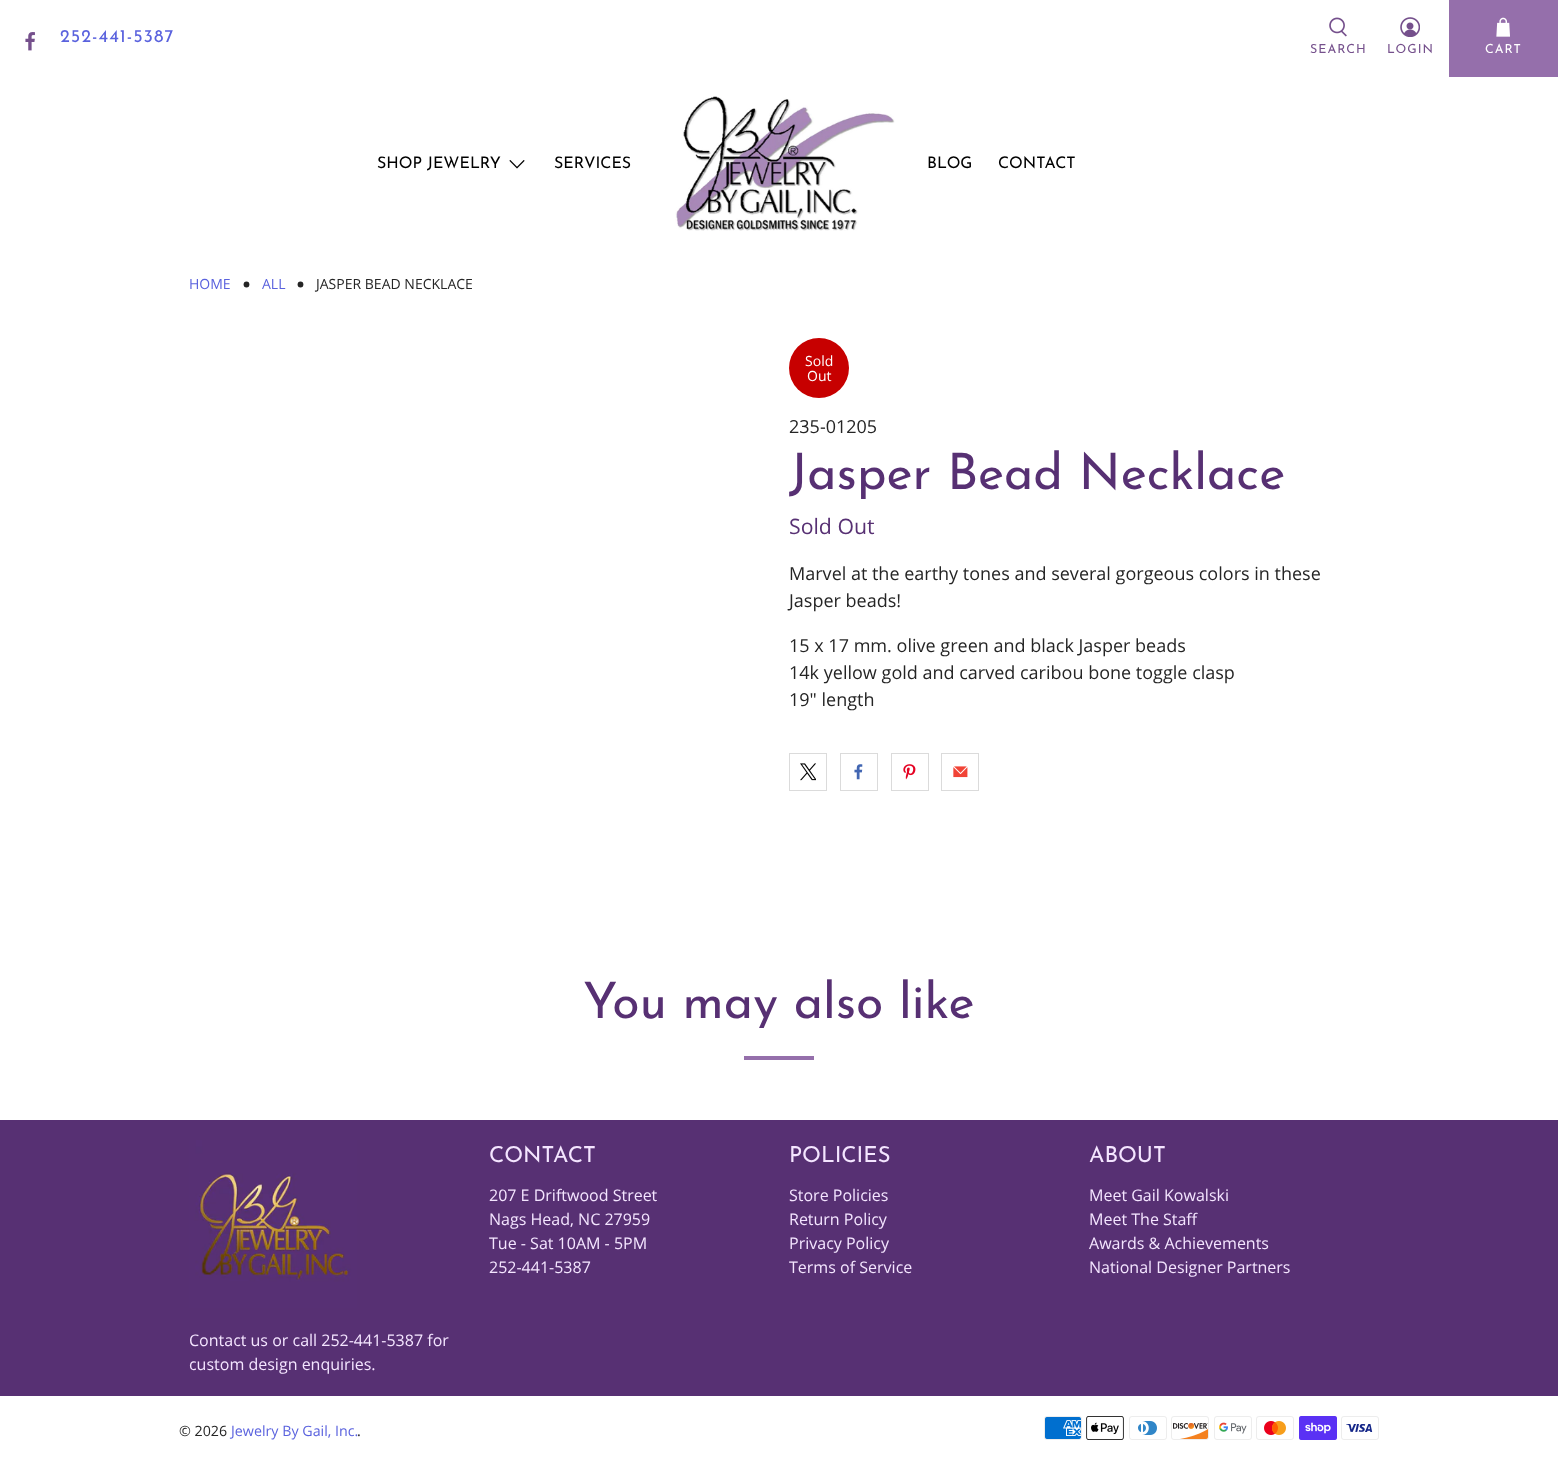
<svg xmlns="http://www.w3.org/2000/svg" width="1558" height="1464">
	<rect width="100%" height="100%" fill="#FFFFFF" />
	<image x="25" y="32" width="10" height="19" href="assets/img1.png" />
	<text x="60" y="42" font-family="Josefin Sans" font-size="18" letter-spacing="1" fill="#5A62DE">252-441-5387</text>
	<image x="1329" y="17" width="18" height="20" href="assets/img2.png" />
	<text x="1310" y="53" font-family="Josefin Sans" font-size="12.5" letter-spacing="1" fill="#75508C">SEARCH</text>
	<image x="1400" y="17" width="20" height="20" href="assets/img3.png" />
	<text x="1387" y="53" font-family="Josefin Sans" font-size="12.5" letter-spacing="1" fill="#75508C">LOGIN</text>
	<rect x="1449" y="0" width="109" height="77" fill="#956FAB" />
	<image x="1496" y="17" width="14" height="20" href="assets/img4.png" />
	<text x="1485" y="53" font-family="Josefin Sans" font-size="12.5" letter-spacing="1" fill="#FFFFFF">CART</text>
	<text x="377" y="168" font-family="Josefin Sans" font-size="16" fill="#000000">SHOP JEWELRY</text>
	<image x="509" y="160" width="16" height="9" href="assets/img5.png" />
	<text x="554" y="168" font-family="Josefin Sans" font-size="16" fill="#000000">SERVICES</text>
	<image x="675" y="96" width="220" height="135" href="assets/img6.png" />
	<g font-family="Josefin Sans" font-size="16" fill="#000000">
		<text x="927" y="168">BLOG</text>
		<text x="998" y="168">CONTACT</text>
	</g>
	<text x="189" y="289" font-family="Open Sans" font-size="14" fill="#5A62DE">HOME</text>
	<circle cx="246.5" cy="284.5" r="2.9" fill="#252525" />
	<text x="262" y="289" font-family="Open Sans" font-size="14" fill="#5A62DE">ALL</text>
	<circle cx="300.5" cy="284.5" r="2.9" fill="#252525" />
	<text x="316" y="289" font-family="Open Sans" font-size="14" fill="#252525">JASPER BEAD NECKLACE</text>
	<circle cx="819" cy="368" r="30" fill="#C70000" />
	<g font-family="Open Sans" font-size="14" fill="#FFFFFF">
		<text x="805" y="366">Sold</text>
		<text x="807" y="381">Out</text>
	</g>
	<text x="789" y="433" font-family="Open Sans" font-size="18" fill="#252525">235-01205</text>
	<text x="789" y="489" font-family="Josefin Sans" font-size="50" fill="#573073">Jasper Bead Necklace</text>
	<text x="789" y="534" font-family="Open Sans" font-size="21.25" fill="#573073">Sold Out</text>
	<g font-family="Open Sans" font-size="18" fill="#252525">
		<text x="789" y="580">Marvel at the earthy tones and several gorgeous colors in these</text>
		<text x="789" y="607">Jasper beads!</text>
		<text x="789" y="652">15 x 17 mm. olive green and black Jasper beads</text>
		<text x="789" y="679">14k yellow gold and carved caribou bone toggle clasp</text>
		<text x="789" y="706">19" length</text>
	</g>
	<rect x="789.5" y="753.5" width="37" height="37" fill="none" stroke="#DBDBDB" />
	<image x="800" y="763" width="16" height="18" href="assets/img7.png" />
	<rect x="840.5" y="753.5" width="37" height="37" fill="none" stroke="#DBDBDB" />
	<image x="854" y="764" width="9" height="16" href="assets/img8.png" />
	<rect x="891.5" y="753.5" width="37" height="37" fill="none" stroke="#DBDBDB" />
	<image x="903" y="764" width="13" height="16" href="assets/img9.png" />
	<rect x="941.5" y="753.5" width="37" height="37" fill="none" stroke="#DBDBDB" />
	<image x="953" y="766" width="15" height="12" href="assets/img10.png" />
	<text x="583" y="1018" font-family="Josefin Sans" font-size="50" fill="#573073">You may also like</text>
	<rect x="744" y="1056" width="70" height="4" fill="#956FAB" />
	<rect x="0" y="1120" width="1558" height="276" fill="#573073" />
	<text x="489" y="1162" font-family="Josefin Sans" font-size="22" fill="#F4E5FF">CONTACT</text>
	<g font-family="Open Sans" font-size="16" fill="#F4E5FF">
		<text x="489" y="1201">207 E Driftwood Street</text>
		<text x="489" y="1225">Nags Head, NC 27959</text>
		<text x="489" y="1249">Tue - Sat 10AM - 5PM</text>
		<text x="489" y="1273">252-441-5387</text>
	</g>
	<text x="789" y="1162" font-family="Josefin Sans" font-size="22" fill="#F4E5FF">POLICIES</text>
	<g font-family="Open Sans" font-size="16" fill="#F4E5FF">
		<text x="789" y="1201">Store Policies</text>
		<text x="789" y="1225">Return Policy</text>
		<text x="789" y="1249">Privacy Policy</text>
		<text x="789" y="1273">Terms of Service</text>
	</g>
	<text x="1089" y="1162" font-family="Josefin Sans" font-size="22" fill="#F4E5FF">ABOUT</text>
	<g font-family="Open Sans" font-size="16" fill="#F4E5FF">
		<text x="1089" y="1201">Meet Gail Kowalski</text>
		<text x="1089" y="1225">Meet The Staff</text>
		<text x="1089" y="1249">Awards &amp; Achievements</text>
		<text x="1089" y="1273">National Designer Partners</text>
	</g>
	<image x="189" y="1140" width="168" height="168" href="assets/img11.png" />
	<g font-family="Open Sans" font-size="16" fill="#F4E5FF">
		<text x="189" y="1346">Contact us or call 252-441-5387 for</text>
		<text x="189" y="1370">custom design enquiries.</text>
	</g>
	<text x="179" y="1436" font-family="Open Sans" font-size="14.25" fill="#252525">© 2026</text>
	<text x="231" y="1436" font-family="Open Sans" font-size="14.25" fill="#5A62DE">Jewelry By Gail, Inc.</text>
	<text x="357" y="1436" font-family="Open Sans" font-size="14.25" fill="#252525">.</text>
	<image x="1044" y="1416" width="38" height="24" href="assets/img12.png" />
	<image x="1086" y="1416" width="38" height="24" href="assets/img13.png" />
	<image x="1129" y="1416" width="38" height="24" href="assets/img14.png" />
	<image x="1171" y="1416" width="38" height="24" href="assets/img15.png" />
	<image x="1214" y="1416" width="38" height="24" href="assets/img16.png" />
	<image x="1256" y="1416" width="38" height="24" href="assets/img17.png" />
	<image x="1299" y="1416" width="38" height="24" href="assets/img18.png" />
	<image x="1341" y="1416" width="38" height="24" href="assets/img19.png" />
</svg>
